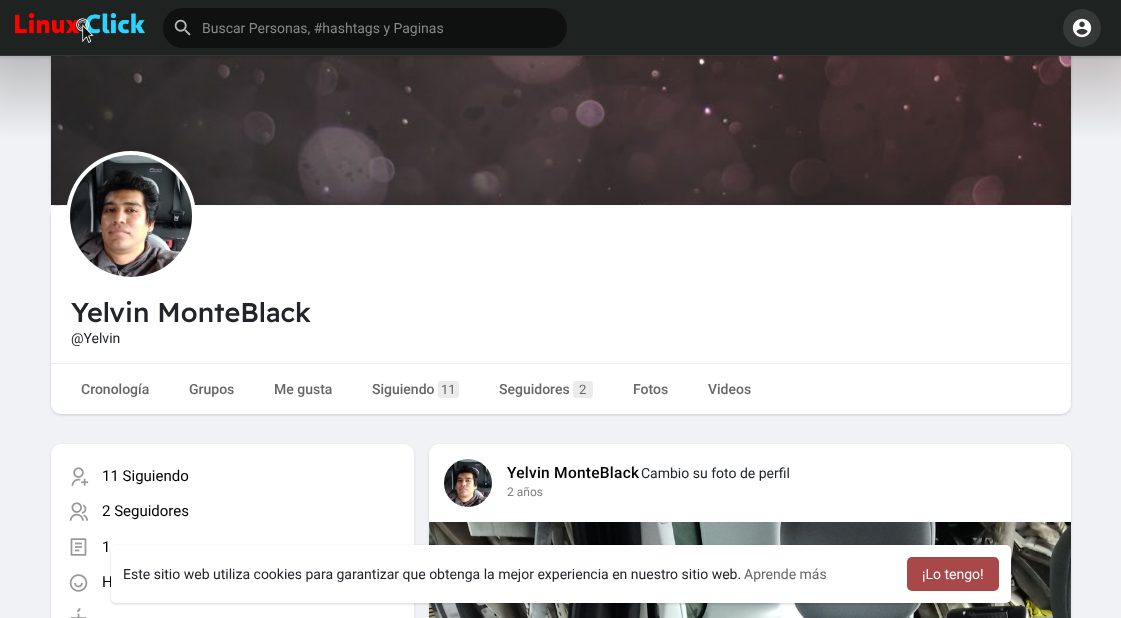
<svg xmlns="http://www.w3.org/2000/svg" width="1121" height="618">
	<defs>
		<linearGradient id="g1" gradientUnits="userSpaceOnUse" x1="561" y1="-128" x2="561" y2="206"><stop offset="0" stop-color="#FFFFFF" stop-opacity="0.1" /><stop offset="0.8" stop-color="#F0F2F5" /><stop offset="1" stop-color="#F0F2F5" /></linearGradient>
	</defs>
	<rect width="100%" height="100%" fill="#F0F2F5" />
	<image x="0" y="56" width="1121" height="81" href="assets/img6.png" />
	<rect x="0" y="56" width="1121" height="81" fill="url(#g1)" />
	<rect x="51" y="-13" width="1020" height="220" rx="10" fill="#000000" fill-opacity="0.06" filter="blur(1px)" />
	<rect x="51" y="-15" width="1020" height="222" rx="10" fill="#000000" fill-opacity="0.1" filter="blur(1.5px)" />
	<rect x="51" y="-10" width="1020" height="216" rx="10" fill="#FFFFFF" />
	<rect x="0" y="0" width="1121" height="56" fill="#1E2321" />
	<image x="15" y="13" width="130" height="30" href="assets/img1.png" />
	<rect x="163" y="8" width="404" height="40" rx="20" fill="#0F1110" />
	<image x="174" y="19" width="17" height="17" href="assets/img2.png" />
	<text x="202" y="33" font-family="Roboto" font-size="14" fill="#878888">Buscar Personas, #hashtags y Paginas</text>
	<image x="51" y="56" width="1020" height="149" href="assets/img5.png" />
	<image x="0" y="55" width="1121" height="4" href="assets/img3.png" />
	<circle cx="1082" cy="28" r="19" fill="#353937" />
	<image x="1072" y="18" width="20" height="20" href="assets/img4.png" />
	<rect x="51" y="207" width="1020" height="208" rx="10" fill="#000000" fill-opacity="0.06" filter="blur(1px)" />
	<rect x="51" y="207" width="1020" height="208" rx="10" fill="#000000" fill-opacity="0.1" filter="blur(1.5px)" />
	<path d="M51 206H1071V404C1071 409.5 1066.5 414 1061 414H61C55.5 414 51 409.5 51 404Z" fill="#FFFFFF" />
	<circle cx="131" cy="216" r="65" fill="#FFFFFF" />
	<image x="70" y="155" width="122" height="122" href="assets/img7.png" />
	<text x="71" y="322" font-family="Readex Pro" font-size="27" font-weight="500" fill="#212529">Yelvin MonteBlack</text>
	<text x="71" y="343" font-family="Roboto" font-size="14" fill="#212529">@Yelvin</text>
	<rect x="51" y="363" width="1020" height="1" fill="#EEEEEE" />
	<g font-family="Roboto" font-size="14" font-weight="500" fill="#666666">
		<text x="81" y="394">Cronología</text>
		<text x="189" y="394">Grupos</text>
		<text x="274" y="394">Me gusta</text>
		<text x="372" y="394">Siguiendo</text>
	</g>
	<rect x="438" y="381" width="21" height="17" rx="3" fill="#EBEBEB" />
	<text x="441" y="394" font-family="Roboto" font-size="13" fill="#666666">11</text>
	<text x="499" y="394" font-family="Roboto" font-size="14" font-weight="500" fill="#666666">Seguidores</text>
	<rect x="573" y="381" width="20" height="17" rx="3" fill="#EBEBEB" />
	<text x="579" y="394" font-family="Roboto" font-size="13" fill="#666666">2</text>
	<g font-family="Roboto" font-size="14" font-weight="500" fill="#666666">
		<text x="633" y="394">Fotos</text>
		<text x="708" y="394">Videos</text>
	</g>
	<rect x="51" y="445" width="363" height="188" rx="10" fill="#000000" fill-opacity="0.1" filter="blur(1.5px)" />
	<rect x="51" y="444" width="363" height="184" rx="10" fill="#FFFFFF" />
	<image x="71" y="467" width="18" height="19" href="assets/img8.png" />
	<text x="102" y="481" font-family="Roboto" font-size="15" fill="#000000">11 Siguiendo</text>
	<image x="69" y="502" width="20" height="19" href="assets/img9.png" />
	<text x="102" y="516" font-family="Roboto" font-size="15" fill="#000000">2 Seguidores</text>
	<image x="70" y="538" width="17" height="18" href="assets/img10.png" />
	<text x="102" y="552" font-family="Roboto" font-size="15" fill="#000000">1</text>
	<image x="69" y="574" width="19" height="18" href="assets/img11.png" />
	<text x="102" y="587" font-family="Roboto" font-size="15" fill="#000000">H</text>
	<image x="70" y="608" width="17" height="10" href="assets/img12.png" />
	<rect x="429" y="445" width="642" height="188" rx="10" fill="#000000" fill-opacity="0.1" filter="blur(1.5px)" />
	<rect x="429" y="444" width="642" height="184" rx="10" fill="#FFFFFF" />
	<image x="444" y="459" width="48" height="48" href="assets/img13.png" />
	<text x="507" y="478" font-family="Roboto" font-size="15.5" font-weight="500" letter-spacing="0.25" fill="#000000">Yelvin MonteBlack</text>
	<text x="641" y="478" font-family="Roboto" font-size="14" fill="#212529">Cambio su foto de perfil</text>
	<text x="507" y="496" font-family="Roboto" font-size="12" fill="#7F7F7F">2 años</text>
	<image x="429" y="522" width="642" height="96" href="assets/img14.png" />
	<rect x="111" y="546" width="900" height="58" rx="5" fill="#000000" fill-opacity="0.06" filter="blur(1px)" />
	<rect x="111" y="546" width="900" height="58" rx="5" fill="#000000" fill-opacity="0.1" filter="blur(1.5px)" />
	<rect x="111" y="545" width="900" height="58" rx="5" fill="#FFFFFF" />
	<text x="123" y="579" font-family="Roboto" font-size="14" fill="#212529">Este sitio web utiliza cookies para garantizar que obtenga la mejor experiencia en nuestro sitio web.</text>
	<text x="744" y="579" font-family="Roboto" font-size="14" fill="#666666">Aprende más</text>
	<rect x="907" y="557" width="92" height="34" rx="5" fill="#A84849" />
	<text x="922" y="579" font-family="Roboto" font-size="14" fill="#FFFFFF">¡Lo tengo!</text>
</svg>
